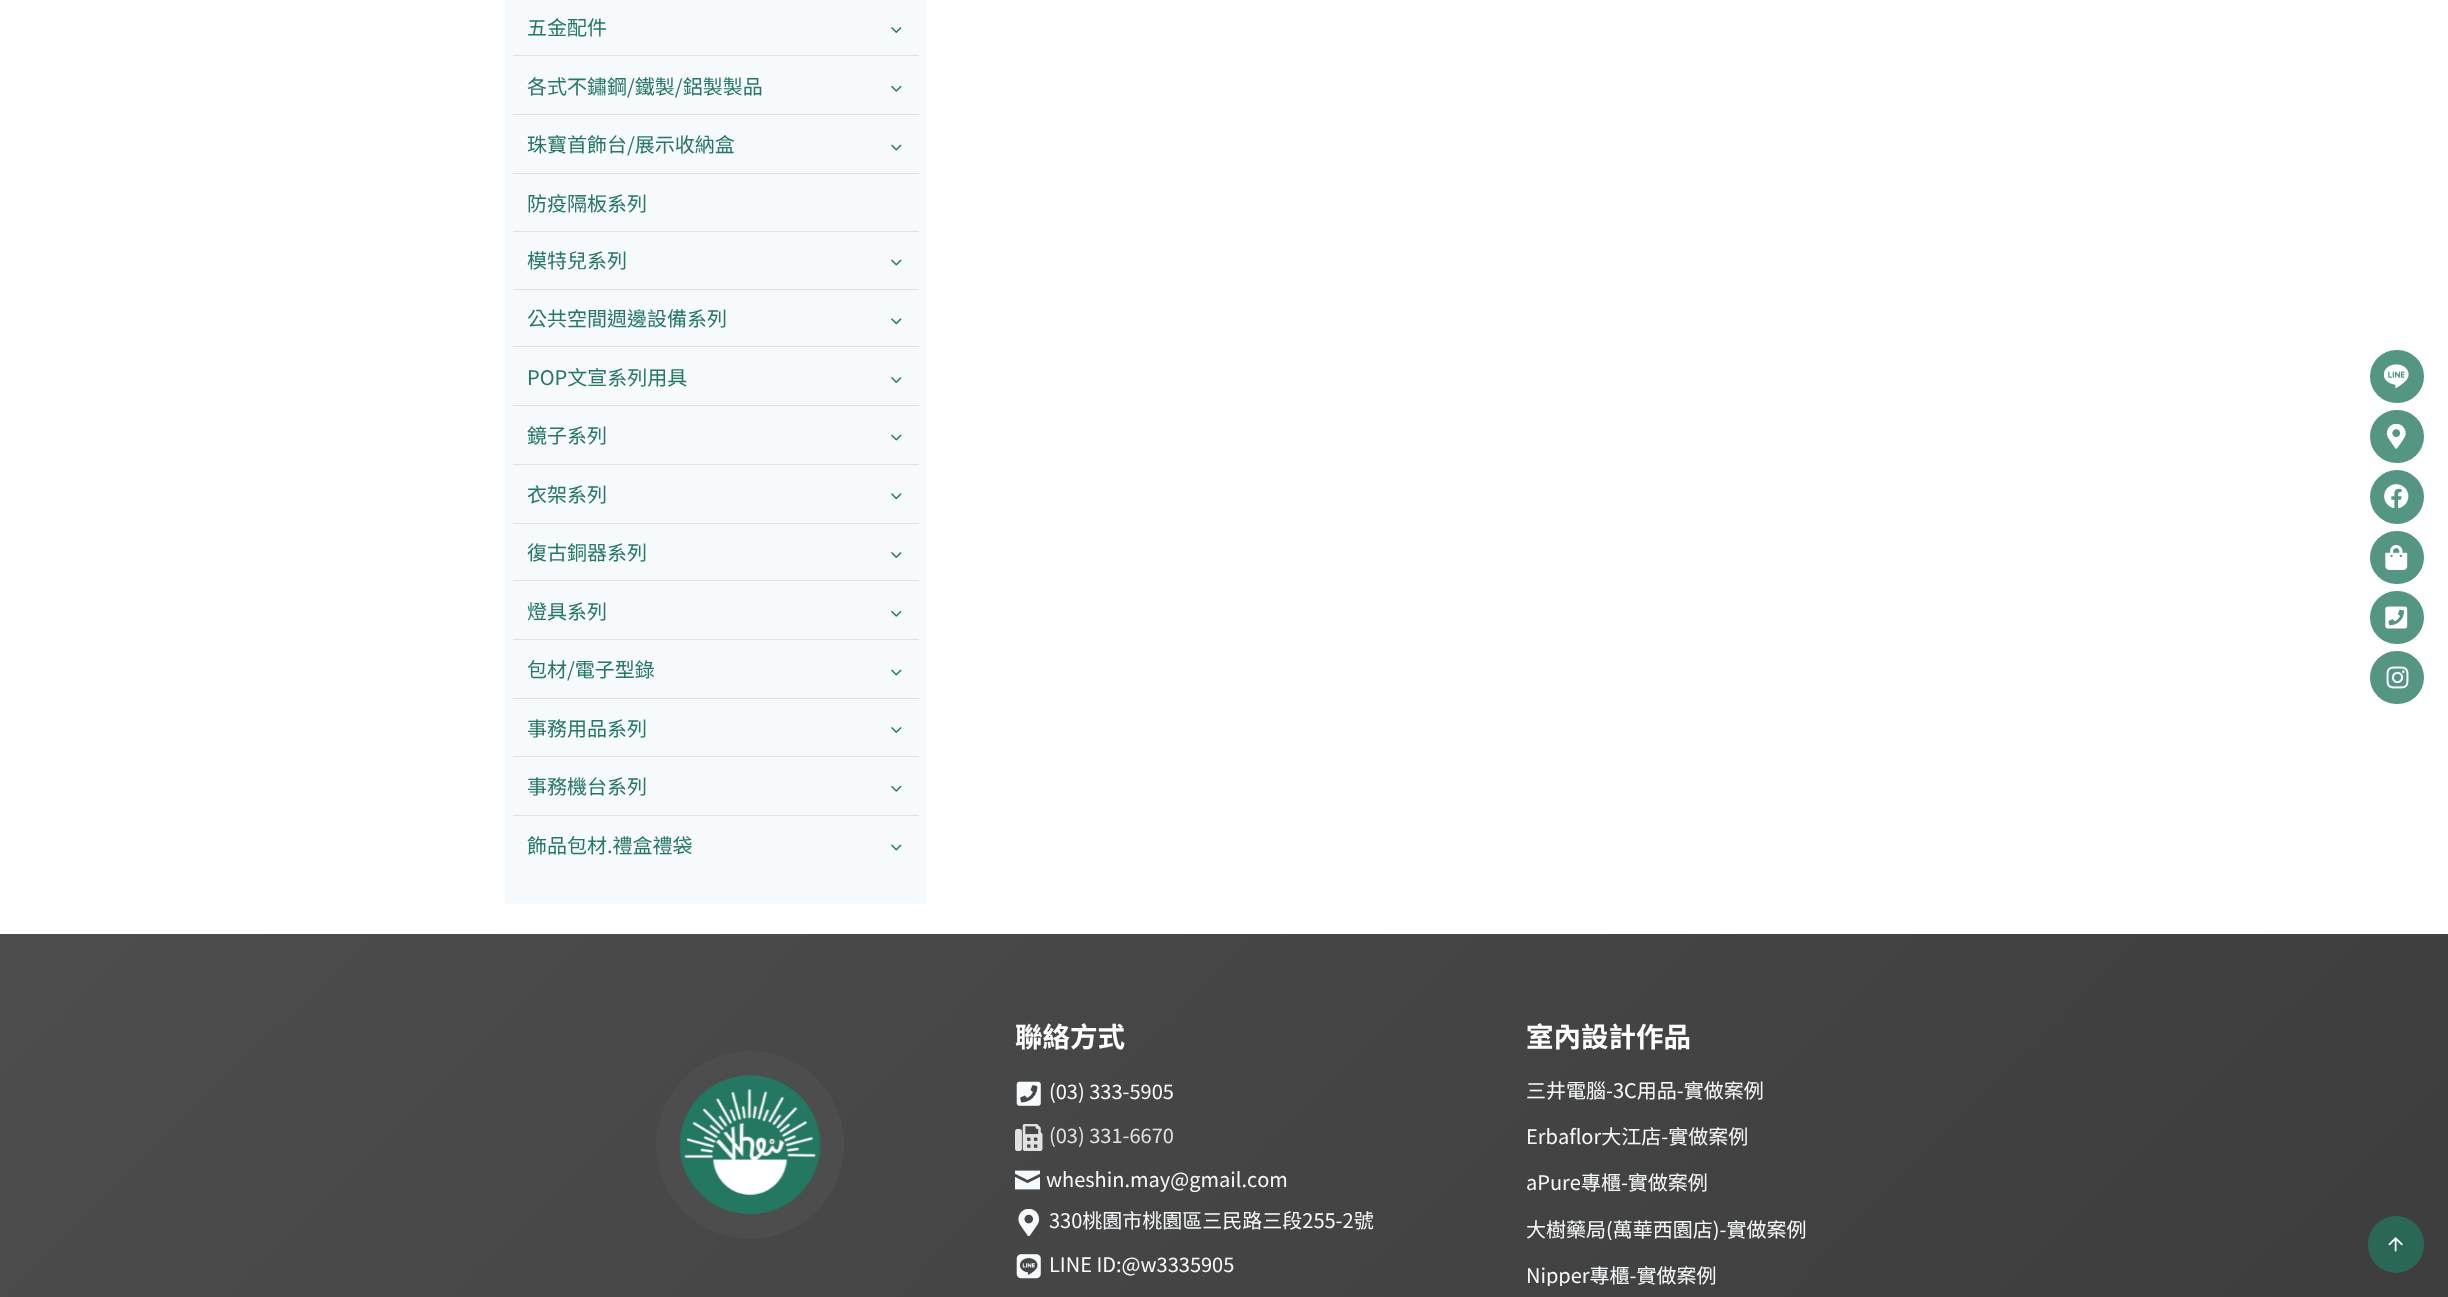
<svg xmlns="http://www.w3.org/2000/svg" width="2448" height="1297">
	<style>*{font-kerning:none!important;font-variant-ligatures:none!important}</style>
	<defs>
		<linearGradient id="g1" gradientUnits="userSpaceOnUse" x1="507" y1="427" x2="1942" y2="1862"><stop offset="0" stop-color="#4D4D4D" /><stop offset="0.99" stop-color="#3D3D3D" /></linearGradient>
		<clipPath id="clip1"><rect x="1526" y="1194" width="418" height="46" /></clipPath>
		<clipPath id="clip2"><rect x="1526" y="1240" width="418" height="46" /></clipPath>
	</defs>
	<rect width="100%" height="100%" fill="#FFFFFF" />
	<rect x="505" y="0" width="421" height="904" fill="#F7FAFC" />
	<rect x="513" y="55" width="406" height="1" fill="#E1E1E1" />
	<text x="527" y="35" font-family="Noto Sans TC" font-size="20" fill="#247761">五金配件</text>
	<image x="891" y="27" width="11" height="6" href="assets/img1.png" />
	<rect x="513" y="114" width="406" height="1" fill="#E1E1E1" />
	<text x="527" y="94" font-family="Noto Sans TC" font-size="20" fill="#247761">各式不鏽鋼/鐵製/鋁製製品</text>
	<image x="891" y="85" width="11" height="7" href="assets/img2.png" />
	<rect x="513" y="173" width="406" height="1" fill="#E1E1E1" />
	<text x="527" y="152" font-family="Noto Sans TC" font-size="20" fill="#247761">珠寶首飾台/展示收納盒</text>
	<image x="891" y="144" width="11" height="7" href="assets/img3.png" />
	<rect x="513" y="231" width="406" height="1" fill="#E1E1E1" />
	<text x="527" y="211" font-family="Noto Sans TC" font-size="20" fill="#247761">防疫隔板系列</text>
	<rect x="513" y="289" width="406" height="1" fill="#E1E1E1" />
	<text x="527" y="268" font-family="Noto Sans TC" font-size="20" fill="#247761">模特兒系列</text>
	<image x="891" y="259" width="11" height="7" href="assets/img3.png" />
	<rect x="513" y="346" width="406" height="1" fill="#E1E1E1" />
	<text x="527" y="326" font-family="Noto Sans TC" font-size="20" fill="#247761">公共空間週邊設備系列</text>
	<image x="891" y="318" width="11" height="7" href="assets/img4.png" />
	<rect x="513" y="405" width="406" height="1" fill="#E1E1E1" />
	<text x="527" y="385" font-family="Noto Sans TC" font-size="20" fill="#247761">POP文宣系列用具</text>
	<image x="891" y="377" width="11" height="6" href="assets/img1.png" />
	<rect x="513" y="464" width="406" height="1" fill="#E1E1E1" />
	<text x="527" y="443" font-family="Noto Sans TC" font-size="20" fill="#247761">鏡子系列</text>
	<image x="891" y="434" width="11" height="7" href="assets/img3.png" />
	<rect x="513" y="523" width="406" height="1" fill="#E1E1E1" />
	<text x="527" y="502" font-family="Noto Sans TC" font-size="20" fill="#247761">衣架系列</text>
	<image x="891" y="493" width="11" height="7" href="assets/img4.png" />
	<rect x="513" y="580" width="406" height="1" fill="#E1E1E1" />
	<text x="527" y="560" font-family="Noto Sans TC" font-size="20" fill="#247761">復古銅器系列</text>
	<image x="891" y="552" width="11" height="6" href="assets/img1.png" />
	<rect x="513" y="639" width="406" height="1" fill="#E1E1E1" />
	<text x="527" y="619" font-family="Noto Sans TC" font-size="20" fill="#247761">燈具系列</text>
	<image x="891" y="610" width="11" height="7" href="assets/img2.png" />
	<rect x="513" y="698" width="406" height="1" fill="#E1E1E1" />
	<text x="527" y="677" font-family="Noto Sans TC" font-size="20" fill="#247761">包材/電子型錄</text>
	<image x="891" y="669" width="11" height="7" href="assets/img3.png" />
	<rect x="513" y="756" width="406" height="1" fill="#E1E1E1" />
	<text x="527" y="736" font-family="Noto Sans TC" font-size="20" fill="#247761">事務用品系列</text>
	<image x="891" y="727" width="11" height="6" href="assets/img1.png" />
	<rect x="513" y="815" width="406" height="1" fill="#E1E1E1" />
	<text x="527" y="794" font-family="Noto Sans TC" font-size="20" fill="#247761">事務機台系列</text>
	<image x="891" y="785" width="11" height="7" href="assets/img2.png" />
	<text x="527" y="853" font-family="Noto Sans TC" font-size="20" fill="#247761">飾品包材.禮盒禮袋</text>
	<image x="891" y="844" width="11" height="7" href="assets/img3.png" />
	<rect x="0" y="934" width="2448" height="363" fill="url(#g1)" />
	<circle cx="750" cy="1145" r="94" fill="#4D4D4D" />
	<image x="679" y="1075" width="142" height="140" href="assets/img5.png" />
	<text x="1015" y="1047" font-family="Noto Sans TC" font-size="27.5" font-weight="700" fill="#FFFFFF">聯絡方式</text>
	<image x="1016" y="1081" width="25" height="25" href="assets/img6.png" />
	<text x="1049" y="1099" font-family="Noto Sans TC" font-size="20" fill="#F7FAFC">(03) 333-5905</text>
	<image x="1015" y="1124" width="28" height="27" href="assets/img7.png" />
	<text x="1049" y="1143" font-family="Noto Sans TC" font-size="20" fill="#E1E1E1">(03) 331-6670</text>
	<image x="1015" y="1170" width="25" height="20" href="assets/img8.png" />
	<text x="1046" y="1187" font-family="Noto Sans TC" font-size="20" fill="#F7FAFC">wheshin.may@gmail.com</text>
	<image x="1018" y="1209" width="22" height="27" href="assets/img9.png" />
	<text x="1049" y="1228" font-family="Noto Sans TC" font-size="20" fill="#F7FAFC">330桃園市桃園區三民路三段255-2號</text>
	<image x="1016" y="1254" width="25" height="25" href="assets/img10.png" />
	<text x="1049" y="1272" font-family="Noto Sans TC" font-size="20" fill="#F7FAFC">LINE ID:@w3335905</text>
	<text x="1526" y="1047" font-family="Noto Sans TC" font-size="27.5" font-weight="700" fill="#FFFFFF">室內設計作品</text>
	<g font-family="Noto Sans TC" font-size="20" fill="#F7FAFC">
		<text x="1526" y="1098">三井電腦-3C用品-實做案例</text>
		<text x="1526" y="1144">Erbaflor大江店-實做案例</text>
		<text x="1526" y="1190">aPure專櫃-實做案例</text>
	</g>
	<g clip-path="url(#clip1)">
		<text x="1526" y="1237" font-family="Noto Sans TC" font-size="20" fill="#F7FAFC">大樹藥局(萬華西園店)-實做案例</text>
	</g>
	<g clip-path="url(#clip2)">
		<text x="1526" y="1283" font-family="Noto Sans TC" font-size="20" fill="#F7FAFC">Nipper專櫃-實做案例</text>
	</g>
	<rect x="2370" y="350" width="54" height="53" rx="26.5" fill="#549584" />
	<image x="2384" y="364" width="25" height="25" href="assets/img11.png" />
	<rect x="2370" y="410" width="54" height="53" rx="26.5" fill="#549584" />
	<image x="2386" y="424" width="20" height="25" href="assets/img12.png" />
	<circle cx="2397" cy="497" r="27" fill="#549584" />
	<image x="2384" y="484" width="25" height="25" href="assets/img13.png" />
	<rect x="2370" y="531" width="54" height="53" rx="26.5" fill="#549584" />
	<image x="2385" y="545" width="23" height="25" href="assets/img14.png" />
	<rect x="2370" y="591" width="54" height="53" rx="26.5" fill="#549584" />
	<image x="2385" y="606" width="23" height="23" href="assets/img15.png" />
	<rect x="2370" y="651" width="54" height="53" rx="26.5" fill="#549584" />
	<image x="2386" y="666" width="23" height="23" href="assets/img16.png" />
	<rect x="2368" y="1216" width="56" height="57" rx="28" fill="#2B6757" />
	<image x="2388" y="1237" width="15" height="15" href="assets/img17.png" />
</svg>
